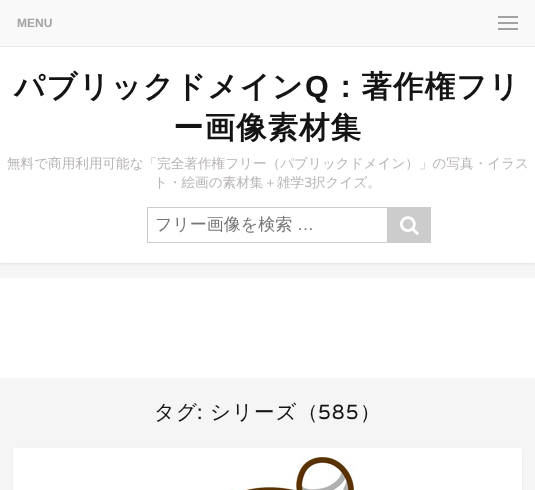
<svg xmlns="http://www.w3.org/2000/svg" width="535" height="490">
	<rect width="100%" height="100%" fill="#F5F5F5" />
	<rect x="0" y="48" width="535" height="216" fill="#323232" fill-opacity="0.1" filter="blur(1px)" />
	<rect x="0" y="0" width="535" height="46" fill="#F9F9F9" />
	<rect x="0" y="46" width="535" height="1" fill="#EAEAEA" />
	<rect x="498" y="16" width="20" height="2" fill="#A2A2A2" />
	<text x="17" y="27" font-family="Liberation Sans" font-size="12" font-weight="700" fill="#A2A2A2">MENU</text>
	<rect x="498" y="22" width="20" height="2" fill="#A2A2A2" />
	<rect x="498" y="28" width="20" height="2" fill="#A2A2A2" />
	<rect x="0" y="47" width="535" height="216" fill="#FFFFFF" />
	<text x="14" y="97" font-family="WenQuanYi Zen Hei" font-size="30.5" font-weight="700" letter-spacing="1" fill="#141414">パブリックドメイン</text>
	<text x="305" y="97" font-family="Liberation Sans" font-size="30.5" font-weight="700" letter-spacing="1" fill="#141414">Q</text>
	<g font-family="WenQuanYi Zen Hei" font-size="30.5" font-weight="700" letter-spacing="1" fill="#141414">
		<text x="330" y="97">：著作権フリ</text>
		<text x="173" y="138">ー画像素材集</text>
	</g>
	<g font-family="WenQuanYi Zen Hei" font-size="13.6" font-weight="500" fill="#B8B4B4">
		<text x="7" y="168">無料で商用利用可能な「完全著作権フリー（パブリックドメイン）」の写真・イラス</text>
		<text x="154" y="187">ト・絵画の素材集＋雑学</text>
	</g>
	<text x="304" y="187" font-family="Varela" font-size="13.6" fill="#B8B4B4">3</text>
	<text x="312" y="187" font-family="WenQuanYi Zen Hei" font-size="13.6" font-weight="500" fill="#B8B4B4">択クイズ。</text>
	<rect x="147.5" y="207.5" width="240" height="35" fill="none" stroke="#CCCCCC" />
	<text x="155" y="230" font-family="WenQuanYi Zen Hei" font-size="17" font-weight="500" fill="#757575">フリー画像を検索</text>
	<text x="297" y="230" font-family="Liberation Sans" font-size="17" fill="#757575">…</text>
	<rect x="388" y="207" width="43" height="36" fill="#CCCCCC" />
	<image x="400" y="216" width="19" height="19" href="assets/img1.png" />
	<rect x="0" y="278" width="535" height="100" fill="#FFFFFF" />
	<text x="154" y="419" font-family="WenQuanYi Zen Hei" font-size="20.5" font-weight="500" letter-spacing="1" fill="#141414">タグ</text>
	<text x="197" y="419" font-family="Varela" font-size="20.5" letter-spacing="1" fill="#141414">:</text>
	<text x="210" y="419" font-family="WenQuanYi Zen Hei" font-size="20.5" font-weight="500" letter-spacing="1" fill="#141414">シリーズ（</text>
	<text x="318" y="419" font-family="Varela" font-size="20.5" letter-spacing="1" fill="#141414">585</text>
	<text x="360" y="419" font-family="WenQuanYi Zen Hei" font-size="20.5" font-weight="500" letter-spacing="1" fill="#141414">）</text>
	<rect x="13" y="449" width="509" height="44" fill="#323232" fill-opacity="0.1" filter="blur(1px)" />
	<rect x="13" y="448" width="509" height="42" fill="#FFFFFF" />
	<image x="226" y="457" width="128" height="33" href="assets/img2.png" />
</svg>
